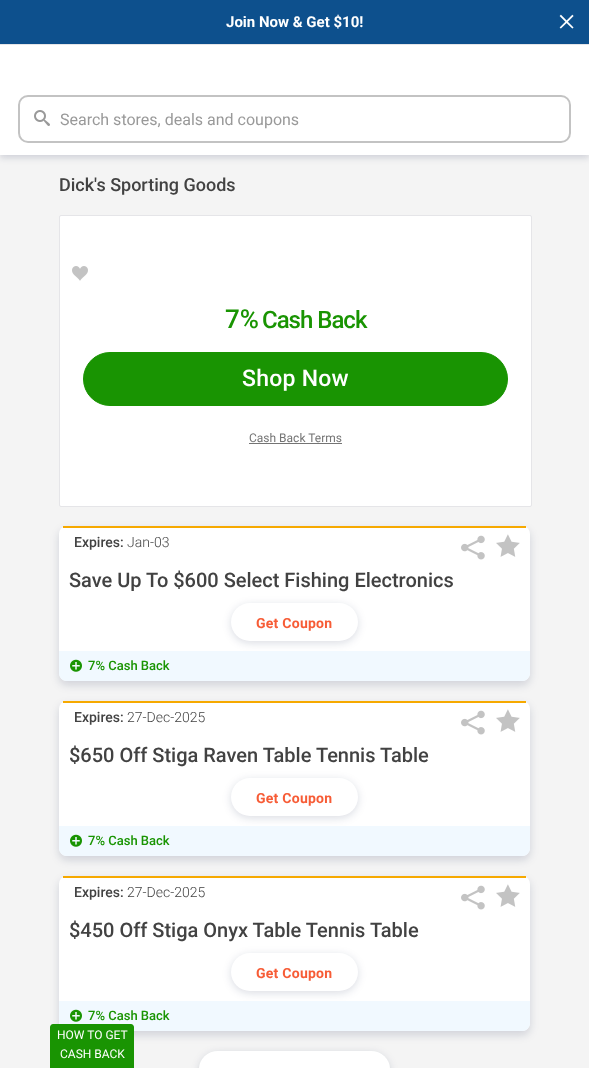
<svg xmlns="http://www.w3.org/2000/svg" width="589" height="1068">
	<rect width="100%" height="100%" fill="#F4F4F4" />
	<rect x="0" y="3" width="589" height="155" fill="#0A1646" fill-opacity="0.15" filter="blur(3px)" />
	<rect x="0" y="0" width="589" height="44" fill="#0D508D" />
	<rect x="0" y="44" width="589" height="1" fill="#E5E5E8" />
	<text x="226" y="27" font-family="Roboto" font-size="15" font-weight="700" fill="#FFFFFF">Join Now &amp; Get $10!</text>
	<text x="557" y="33" font-family="Liberation Serif" font-size="34" fill="#FFFFFF">×</text>
	<rect x="0" y="45" width="589" height="110" fill="#FFFFFF" />
	<rect x="19" y="96" width="551" height="46" rx="9" fill="none" stroke="#C3C3C3" stroke-width="2" />
	<image x="34" y="110" width="16" height="16" href="assets/img1.png" />
	<text x="60" y="125" font-family="Roboto" font-size="16" fill="#999999">Search stores, deals and coupons</text>
	<text x="59" y="191" font-family="Roboto" font-size="18" font-weight="500" fill="#424242">Dick's Sporting Goods</text>
	<rect x="59" y="530" width="471" height="155" rx="8" fill="#0A1646" fill-opacity="0.15" filter="blur(4px)" />
	<rect x="59" y="526" width="471" height="155" rx="8" fill="#FFFFFF" />
	<rect x="63" y="526" width="463" height="2" fill="#F6A900" />
	<text x="74" y="547" font-family="Roboto" font-size="14" font-weight="500" fill="#424242">Expires:</text>
	<text x="127" y="547" font-family="Roboto" font-size="14" font-weight="300" fill="#424242">Jan-03</text>
	<image x="461" y="535" width="24" height="25" href="assets/img2.png" />
	<image x="496" y="534" width="24" height="23" href="assets/img3.png" />
	<text x="69" y="587" font-family="Roboto" font-size="20" font-weight="500" fill="#424242">Save Up To $600 Select Fishing Electronics</text>
	<rect x="231" y="605" width="127" height="38" rx="19" fill="#0A1646" fill-opacity="0.15" filter="blur(4px)" />
	<rect x="231" y="603" width="127" height="38" rx="19" fill="#FFFFFF" />
	<text x="256" y="628" font-family="Roboto" font-size="14" font-weight="700" letter-spacing="0.25" fill="#F75C36">Get Coupon</text>
	<path d="M59 651H530V673C530 677.5 526.5 681 522 681H67C62.5 681 59 677.5 59 673Z" fill="#F1F9FF" />
	<image x="70" y="659" width="12" height="13" href="assets/img4.png" />
	<text x="88" y="670" font-family="Roboto" font-size="13" font-weight="500" fill="#199402">7% Cash Back</text>
	<rect x="59" y="705" width="471" height="155" rx="8" fill="#0A1646" fill-opacity="0.15" filter="blur(4px)" />
	<rect x="59" y="701" width="471" height="155" rx="8" fill="#FFFFFF" />
	<rect x="63" y="701" width="463" height="2" fill="#F6A900" />
	<text x="74" y="722" font-family="Roboto" font-size="14" font-weight="500" fill="#424242">Expires:</text>
	<text x="127" y="722" font-family="Roboto" font-size="14" font-weight="300" fill="#424242">27-Dec-2025</text>
	<image x="461" y="710" width="24" height="25" href="assets/img2.png" />
	<image x="496" y="709" width="24" height="23" href="assets/img3.png" />
	<text x="69" y="762" font-family="Roboto" font-size="20" font-weight="500" fill="#424242">$650 Off Stiga Raven Table Tennis Table</text>
	<rect x="231" y="780" width="127" height="38" rx="19" fill="#0A1646" fill-opacity="0.15" filter="blur(4px)" />
	<rect x="231" y="778" width="127" height="38" rx="19" fill="#FFFFFF" />
	<text x="256" y="803" font-family="Roboto" font-size="14" font-weight="700" letter-spacing="0.25" fill="#F75C36">Get Coupon</text>
	<path d="M59 826H530V848C530 852.5 526.5 856 522 856H67C62.5 856 59 852.5 59 848Z" fill="#F1F9FF" />
	<image x="70" y="834" width="12" height="13" href="assets/img4.png" />
	<text x="88" y="845" font-family="Roboto" font-size="13" font-weight="500" fill="#199402">7% Cash Back</text>
	<rect x="59" y="880" width="471" height="155" rx="8" fill="#0A1646" fill-opacity="0.15" filter="blur(4px)" />
	<rect x="59" y="876" width="471" height="155" rx="8" fill="#FFFFFF" />
	<rect x="63" y="876" width="463" height="2" fill="#F6A900" />
	<text x="74" y="897" font-family="Roboto" font-size="14" font-weight="500" fill="#424242">Expires:</text>
	<text x="127" y="897" font-family="Roboto" font-size="14" font-weight="300" fill="#424242">27-Dec-2025</text>
	<image x="461" y="885" width="24" height="25" href="assets/img2.png" />
	<image x="496" y="884" width="24" height="23" href="assets/img3.png" />
	<text x="69" y="937" font-family="Roboto" font-size="20" font-weight="500" fill="#424242">$450 Off Stiga Onyx Table Tennis Table</text>
	<rect x="231" y="955" width="127" height="38" rx="19" fill="#0A1646" fill-opacity="0.15" filter="blur(4px)" />
	<rect x="231" y="953" width="127" height="38" rx="19" fill="#FFFFFF" />
	<text x="256" y="978" font-family="Roboto" font-size="14" font-weight="700" letter-spacing="0.25" fill="#F75C36">Get Coupon</text>
	<path d="M59 1001H530V1023C530 1027.5 526.5 1031 522 1031H67C62.5 1031 59 1027.5 59 1023Z" fill="#F1F9FF" />
	<image x="70" y="1009" width="12" height="13" href="assets/img4.png" />
	<text x="88" y="1020" font-family="Roboto" font-size="13" font-weight="500" fill="#199402">7% Cash Back</text>
	<rect x="199" y="1053" width="191" height="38" rx="19" fill="#0A1646" fill-opacity="0.15" filter="blur(4px)" />
	<rect x="199" y="1051" width="191" height="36" rx="19" fill="#FFFFFF" />
	<rect x="59.5" y="215.5" width="472" height="291" rx="1.5" fill="#FFFFFF" stroke="#E5E5E8" />
	<image x="72" y="266" width="16" height="15" href="assets/img5.png" />
	<text x="225" y="328" font-family="Roboto" font-size="26" font-weight="500" fill="#199402">7%</text>
	<text x="262" y="328" font-family="Roboto" font-size="24" font-weight="500" letter-spacing="-1" fill="#199402">Cash Back</text>
	<rect x="83.5" y="352.5" width="424" height="53" rx="26.5" fill="#199402" stroke="#199402" />
	<text x="242" y="386" font-family="Roboto" font-size="23" font-weight="500" letter-spacing="0.25" fill="#FFFFFF">Shop Now</text>
	<text x="249" y="442" font-family="Roboto" font-size="12" fill="#747474">Cash Back Terms</text>
	<rect x="249" y="443" width="93" height="1" fill="#747474" />
	<path d="M53 1024H131C132.5 1024 134 1025.5 134 1027V1068H50V1027C50 1025.5 51.5 1024 53 1024Z" fill="#199402" />
	<g font-family="Roboto" font-size="12" fill="#FFFFFF">
		<text x="57" y="1039">HOW TO GET</text>
		<text x="60" y="1058">CASH BACK</text>
	</g>
</svg>
